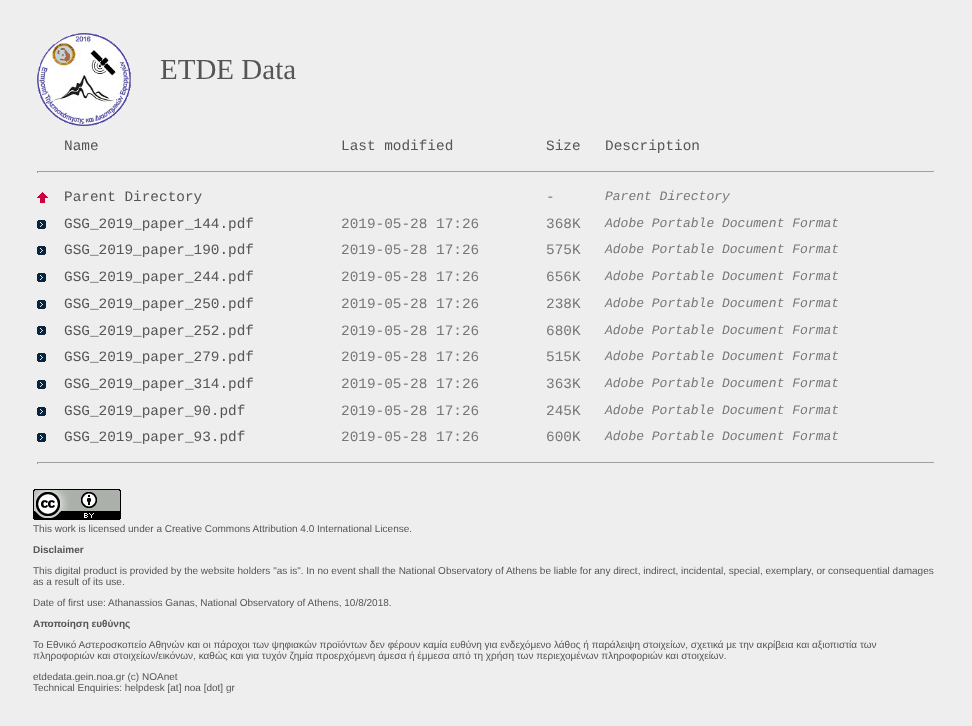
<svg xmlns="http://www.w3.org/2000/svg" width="972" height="726">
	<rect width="100%" height="100%" fill="#EEEEEE" />
	<image x="37" y="33" width="94" height="93" href="assets/img1.png" />
	<text x="160" y="79" font-family="Liberation Serif" font-size="29" fill="#555555">ETDE Data</text>
	<g font-family="Liberation Mono" font-size="14.4" fill="#555555">
		<text x="64" y="150">Name</text>
		<text x="341" y="150">Last modified</text>
		<text x="546" y="150">Size</text>
		<text x="605" y="150">Description</text>
	</g>
	<rect x="37" y="171" width="898" height="1" fill="#9F9F9F" />
	<rect x="934" y="171" width="1" height="2" fill="#EEEEEE" />
	<rect x="37" y="171" width="1" height="2" fill="#9F9F9F" />
	<image x="37" y="192" width="11" height="11" href="assets/img2.png" />
	<text x="64" y="201" font-family="Liberation Mono" font-size="14.4" fill="#555555">Parent Directory</text>
	<text x="546" y="201" font-family="Liberation Mono" font-size="14.4" fill="#777777">-</text>
	<text x="605" y="200" font-family="Liberation Mono" font-size="13" font-style="italic" fill="#777777">Parent Directory</text>
	<image x="37" y="220" width="9" height="9" href="assets/img3.png" />
	<text x="64" y="228" font-family="Liberation Mono" font-size="14.4" fill="#555555">GSG_2019_paper_144.pdf</text>
	<g font-family="Liberation Mono" font-size="14.4" fill="#777777">
		<text x="341" y="228">2019-05-28 17:26</text>
		<text x="546" y="228">368K</text>
	</g>
	<text x="605" y="227" font-family="Liberation Mono" font-size="13" font-style="italic" fill="#777777">Adobe Portable Document Format</text>
	<image x="37" y="246" width="9" height="9" href="assets/img3.png" />
	<text x="64" y="254" font-family="Liberation Mono" font-size="14.4" fill="#555555">GSG_2019_paper_190.pdf</text>
	<g font-family="Liberation Mono" font-size="14.4" fill="#777777">
		<text x="341" y="254">2019-05-28 17:26</text>
		<text x="546" y="254">575K</text>
	</g>
	<text x="605" y="253" font-family="Liberation Mono" font-size="13" font-style="italic" fill="#777777">Adobe Portable Document Format</text>
	<image x="37" y="273" width="9" height="9" href="assets/img3.png" />
	<text x="64" y="281" font-family="Liberation Mono" font-size="14.4" fill="#555555">GSG_2019_paper_244.pdf</text>
	<g font-family="Liberation Mono" font-size="14.4" fill="#777777">
		<text x="341" y="281">2019-05-28 17:26</text>
		<text x="546" y="281">656K</text>
	</g>
	<text x="605" y="280" font-family="Liberation Mono" font-size="13" font-style="italic" fill="#777777">Adobe Portable Document Format</text>
	<image x="37" y="300" width="9" height="9" href="assets/img3.png" />
	<text x="64" y="308" font-family="Liberation Mono" font-size="14.4" fill="#555555">GSG_2019_paper_250.pdf</text>
	<g font-family="Liberation Mono" font-size="14.4" fill="#777777">
		<text x="341" y="308">2019-05-28 17:26</text>
		<text x="546" y="308">238K</text>
	</g>
	<text x="605" y="307" font-family="Liberation Mono" font-size="13" font-style="italic" fill="#777777">Adobe Portable Document Format</text>
	<image x="37" y="326" width="9" height="9" href="assets/img3.png" />
	<text x="64" y="335" font-family="Liberation Mono" font-size="14.4" fill="#555555">GSG_2019_paper_252.pdf</text>
	<g font-family="Liberation Mono" font-size="14.4" fill="#777777">
		<text x="341" y="335">2019-05-28 17:26</text>
		<text x="546" y="335">680K</text>
	</g>
	<text x="605" y="334" font-family="Liberation Mono" font-size="13" font-style="italic" fill="#777777">Adobe Portable Document Format</text>
	<image x="37" y="353" width="9" height="9" href="assets/img3.png" />
	<text x="64" y="361" font-family="Liberation Mono" font-size="14.4" fill="#555555">GSG_2019_paper_279.pdf</text>
	<g font-family="Liberation Mono" font-size="14.4" fill="#777777">
		<text x="341" y="361">2019-05-28 17:26</text>
		<text x="546" y="361">515K</text>
	</g>
	<text x="605" y="360" font-family="Liberation Mono" font-size="13" font-style="italic" fill="#777777">Adobe Portable Document Format</text>
	<image x="37" y="380" width="9" height="9" href="assets/img3.png" />
	<text x="64" y="388" font-family="Liberation Mono" font-size="14.4" fill="#555555">GSG_2019_paper_314.pdf</text>
	<g font-family="Liberation Mono" font-size="14.4" fill="#777777">
		<text x="341" y="388">2019-05-28 17:26</text>
		<text x="546" y="388">363K</text>
	</g>
	<text x="605" y="387" font-family="Liberation Mono" font-size="13" font-style="italic" fill="#777777">Adobe Portable Document Format</text>
	<image x="37" y="407" width="9" height="9" href="assets/img3.png" />
	<text x="64" y="415" font-family="Liberation Mono" font-size="14.4" fill="#555555">GSG_2019_paper_90.pdf</text>
	<g font-family="Liberation Mono" font-size="14.4" fill="#777777">
		<text x="341" y="415">2019-05-28 17:26</text>
		<text x="546" y="415">245K</text>
	</g>
	<text x="605" y="414" font-family="Liberation Mono" font-size="13" font-style="italic" fill="#777777">Adobe Portable Document Format</text>
	<image x="37" y="433" width="9" height="9" href="assets/img3.png" />
	<text x="64" y="441" font-family="Liberation Mono" font-size="14.4" fill="#555555">GSG_2019_paper_93.pdf</text>
	<g font-family="Liberation Mono" font-size="14.4" fill="#777777">
		<text x="341" y="441">2019-05-28 17:26</text>
		<text x="546" y="441">600K</text>
	</g>
	<text x="605" y="440" font-family="Liberation Mono" font-size="13" font-style="italic" fill="#777777">Adobe Portable Document Format</text>
	<rect x="37" y="462" width="898" height="1" fill="#9F9F9F" />
	<rect x="934" y="462" width="1" height="2" fill="#EEEEEE" />
	<rect x="37" y="462" width="1" height="2" fill="#9F9F9F" />
	<image x="33" y="489" width="88" height="31" href="assets/img4.png" />
	<text x="33" y="532" font-family="Liberation Sans" font-size="10" fill="#555555">This work is licensed under a Creative Commons Attribution 4.0 International License.</text>
	<text x="33" y="553" font-family="Liberation Sans" font-size="10" font-weight="700" fill="#555555">Disclaimer</text>
	<g font-family="Liberation Sans" font-size="10" fill="#555555">
		<text x="33" y="574">This digital product is provided by the website holders "as is". In no event shall the National Observatory of Athens be liable for any direct, indirect, incidental, special, exemplary, or consequential damages</text>
		<text x="33" y="585">as a result of its use.</text>
		<text x="33" y="606">Date of first use: Athanassios Ganas, National Observatory of Athens, 10/8/2018.</text>
	</g>
	<text x="33" y="627" font-family="Liberation Sans" font-size="10" font-weight="700" fill="#555555">Αποποίηση ευθύνης</text>
	<g font-family="Liberation Sans" font-size="10" fill="#555555">
		<text x="33" y="648">Το Εθνικό Αστεροσκοπείο Αθηνών και οι πάροχοι των ψηφιακών προϊόντων δεν φέρουν καμία ευθύνη για ενδεχόμενο λάθος ή παράλειψη στοιχείων, σχετικά με την ακρίβεια και αξιοπιστία των</text>
		<text x="33" y="659">πληροφοριών και στοιχείων/εικόνων, καθώς και για τυχόν ζημία προερχόμενη άμεσα ή έμμεσα από τη χρήση των περιεχομένων πληροφοριών και στοιχείων.</text>
		<text x="33" y="680">etdedata.gein.noa.gr (c) NOAnet</text>
		<text x="33" y="691">Technical Enquiries: helpdesk [at] noa [dot] gr</text>
	</g>
</svg>
